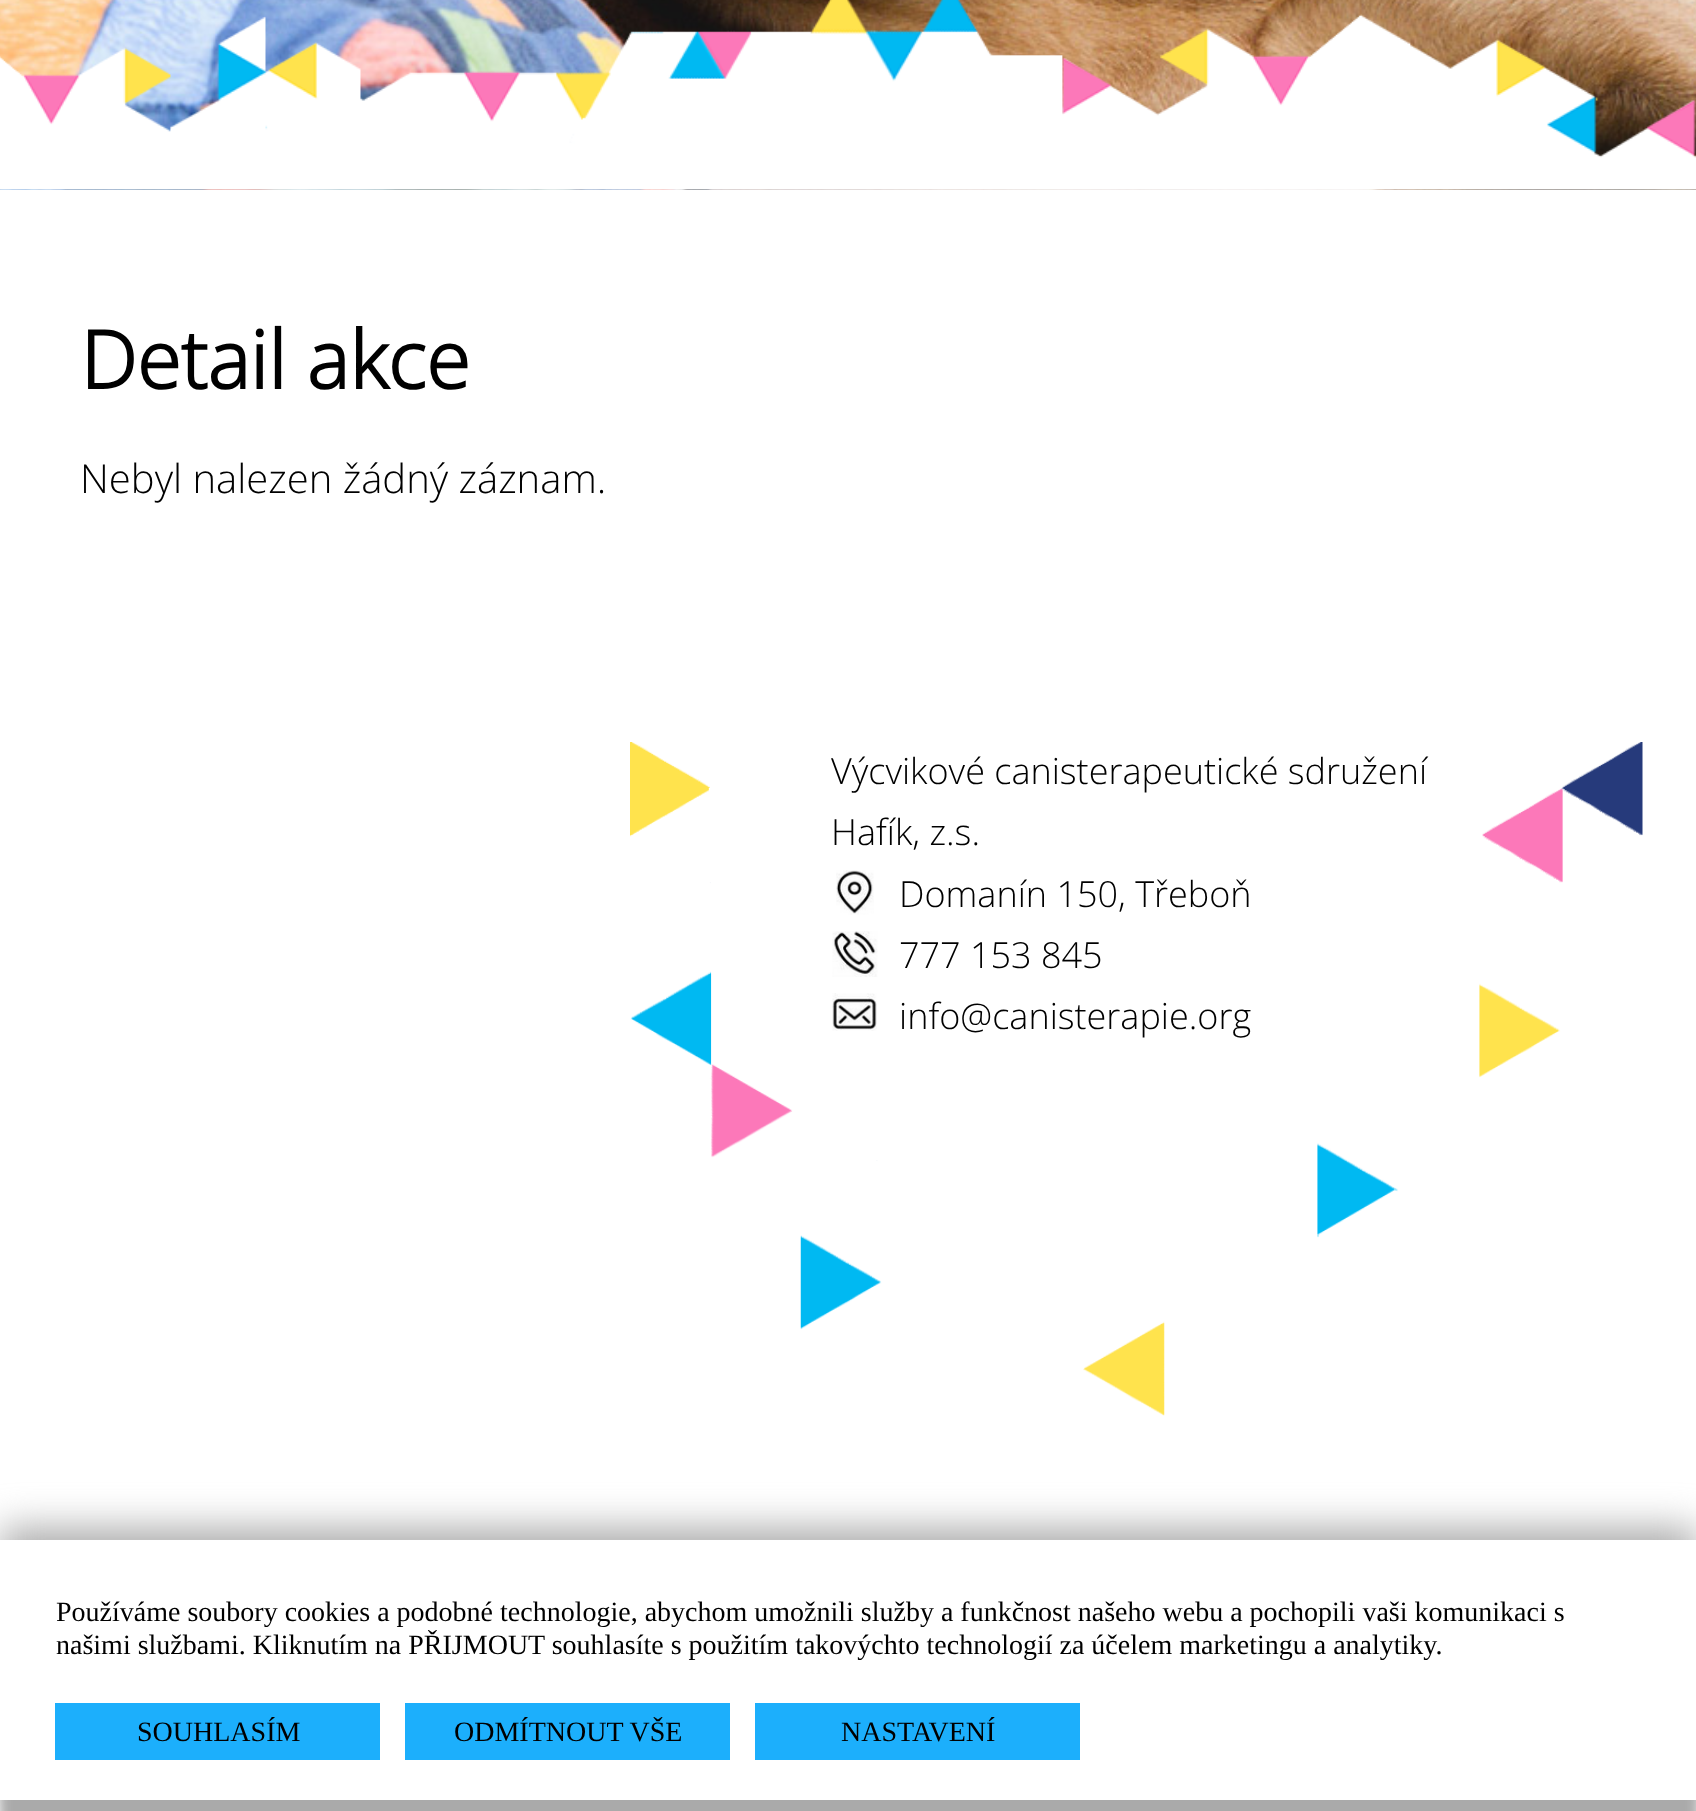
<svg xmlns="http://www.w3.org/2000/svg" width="1696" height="1811">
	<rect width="100%" height="100%" fill="#FFFFFF" />
	<image x="0" y="0" width="1696" height="190" href="assets/img1.png" />
	<image x="0" y="0" width="1696" height="190" href="assets/img2.png" />
	<text x="80" y="389" font-family="Open Sans" font-size="80" font-weight="700" fill="#000000">Detail akce</text>
	<text x="80" y="493" font-family="Open Sans" font-size="40" font-weight="300" fill="#000000">Nebyl nalezen žádný záznam.</text>
	<image x="630" y="742" width="1013" height="674" href="assets/img3.png" />
	<g font-family="Open Sans" font-size="36" font-weight="300" fill="#000000">
		<text x="831" y="784">Výcvikové canisterapeutické sdružení</text>
		<text x="831" y="845">Hafík, z.s.</text>
	</g>
	<image x="836" y="870" width="38" height="45" href="assets/img4.png" />
	<text x="899" y="907" font-family="Open Sans" font-size="36" font-weight="300" fill="#000000">Domanín 150, Třeboň</text>
	<image x="832" y="931" width="46" height="46" href="assets/img5.png" />
	<text x="899" y="968" font-family="Open Sans" font-size="36" font-weight="300" fill="#000000">777 153 845</text>
	<image x="832" y="993" width="45" height="38" href="assets/img6.png" />
	<text x="899" y="1029" font-family="Open Sans" font-size="36" font-weight="300" fill="#000000">info@canisterapie.org</text>
	<rect x="0" y="1528" width="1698" height="260" fill="#AAAAAA" filter="blur(19px)" />
	<rect x="0" y="1565" width="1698" height="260" fill="#AAAAAA" filter="blur(6px)" />
	<rect x="0" y="1540" width="1696" height="260" fill="#FFFFFF" />
	<g font-family="Liberation Serif" font-size="28" fill="#000000">
		<text x="56" y="1621">Používáme soubory cookies a podobné technologie, abychom umožnili služby a funkčnost našeho webu a pochopili vaši komunikaci s</text>
		<text x="56" y="1654">našimi službami. Kliknutím na PŘIJMOUT souhlasíte s použitím takovýchto technologií za účelem marketingu a analytiky.</text>
	</g>
	<rect x="55" y="1703" width="325" height="57" fill="#1CAFFC" />
	<text x="137" y="1741" font-family="Liberation Serif" font-size="28" fill="#000000">SOUHLASÍM</text>
	<rect x="405" y="1703" width="325" height="57" fill="#1CAFFC" />
	<text x="454" y="1741" font-family="Liberation Serif" font-size="28" fill="#000000">ODMÍTNOUT VŠE</text>
	<rect x="755" y="1703" width="325" height="57" fill="#1CAFFC" />
	<text x="841" y="1741" font-family="Liberation Serif" font-size="28" fill="#000000">NASTAVENÍ</text>
</svg>
